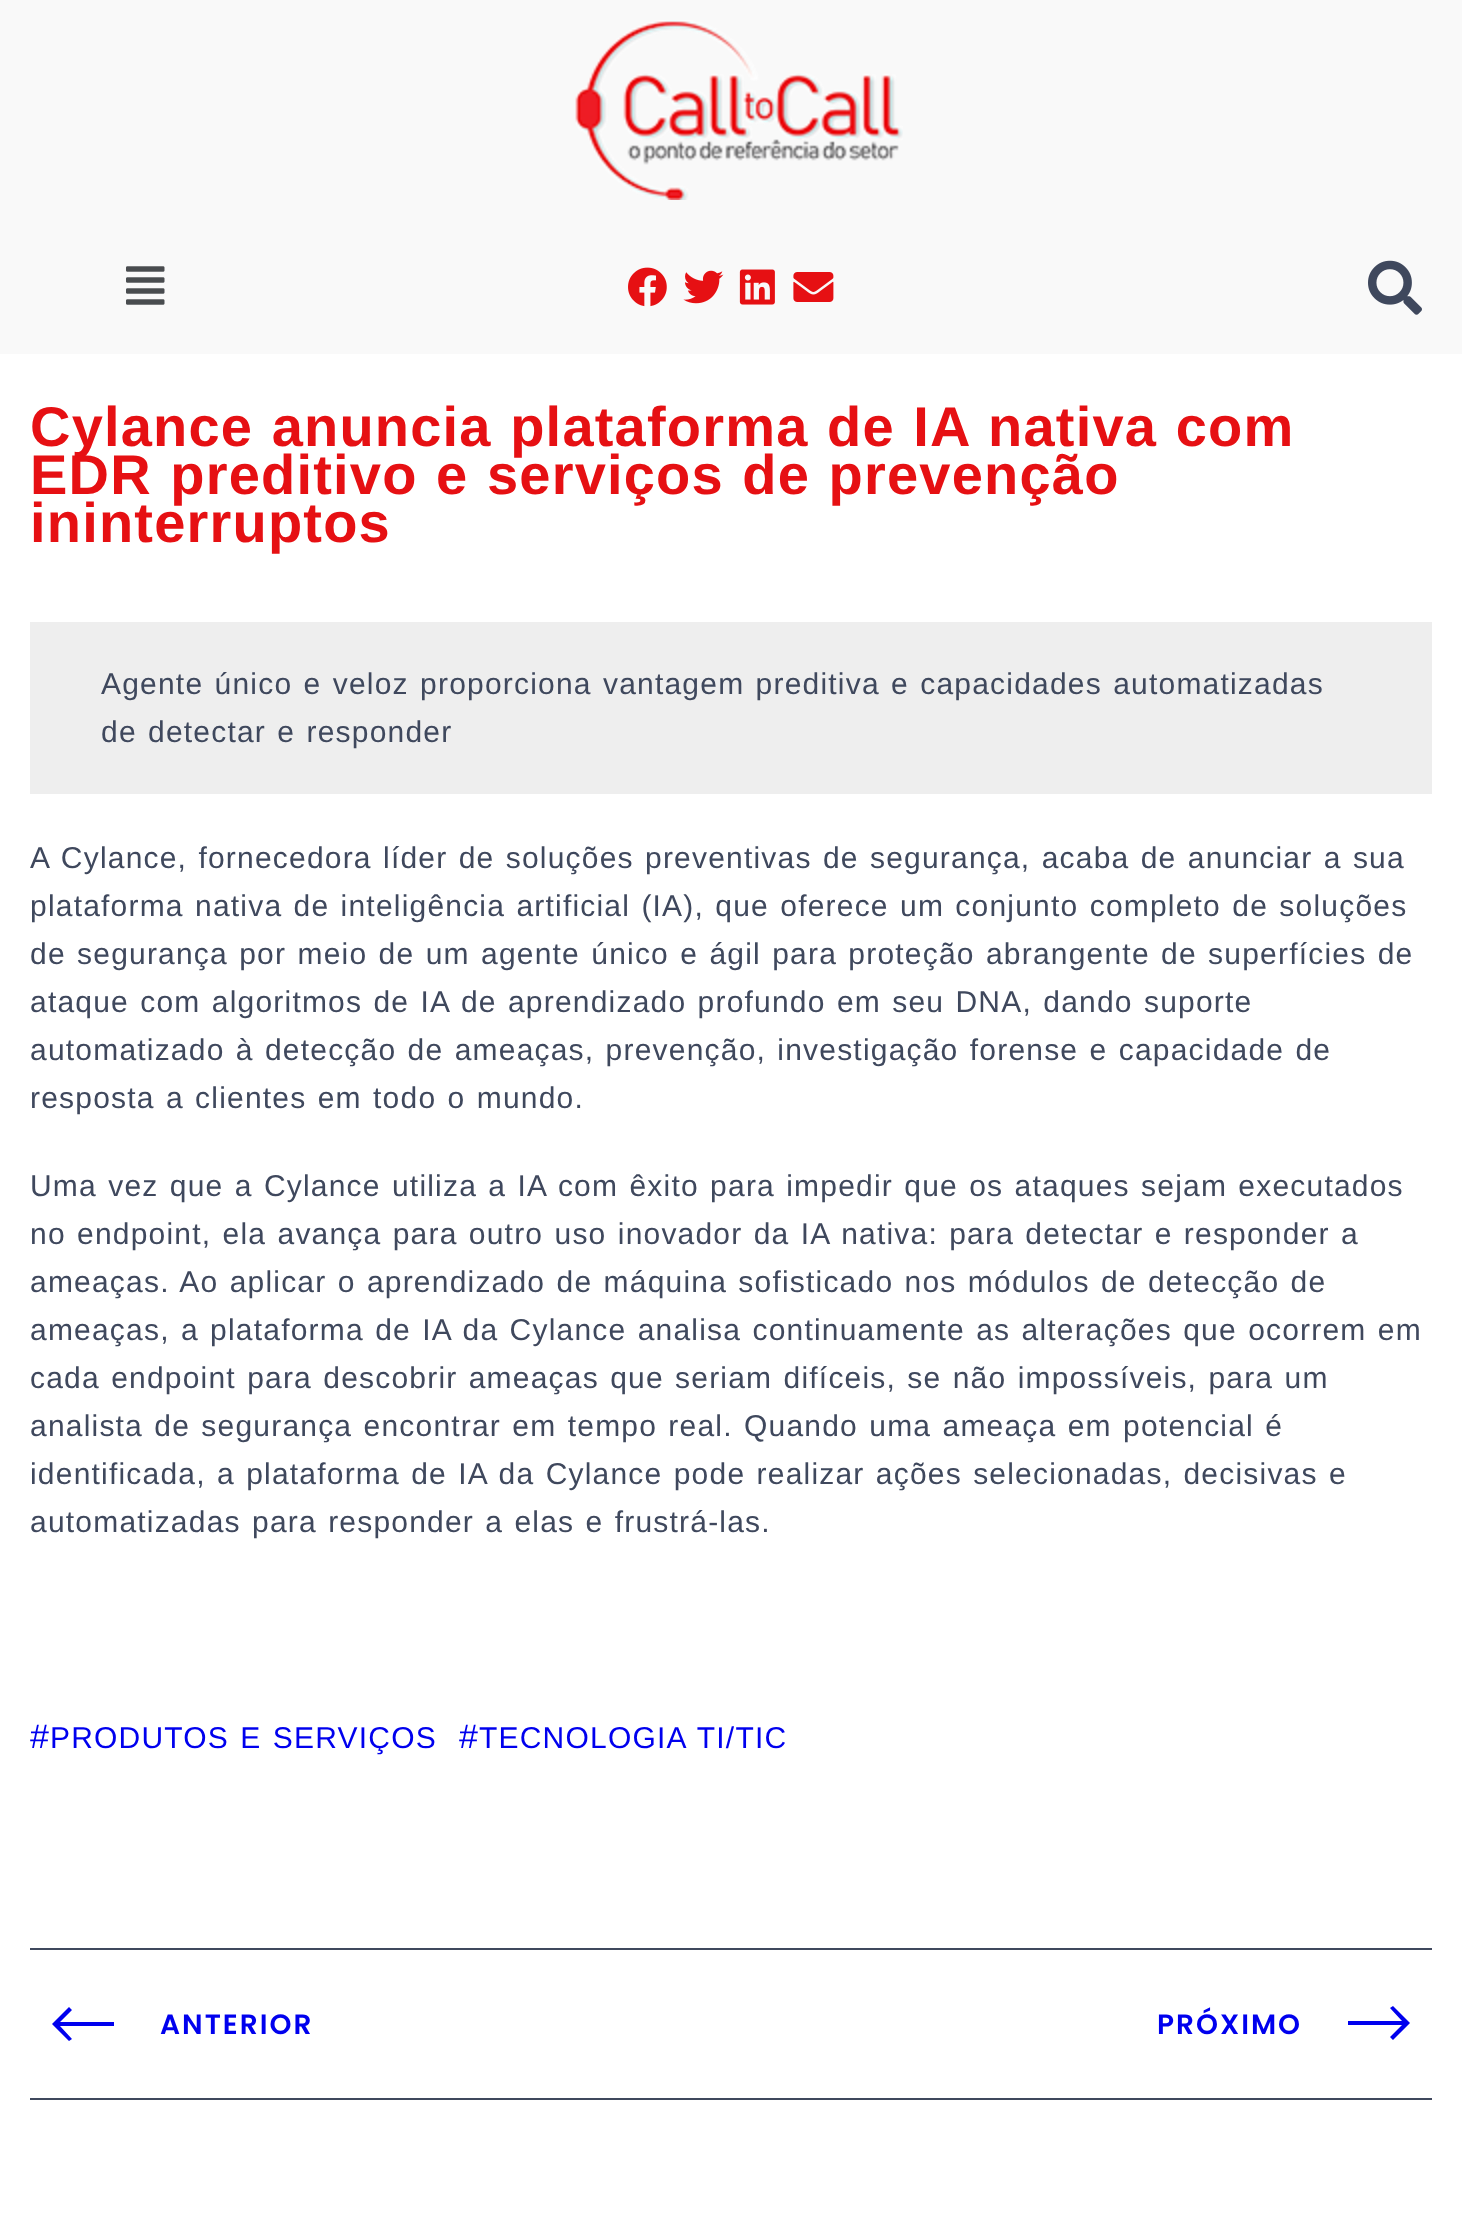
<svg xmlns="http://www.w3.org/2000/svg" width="1462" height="2226">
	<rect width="100%" height="100%" fill="#FFFFFF" />
	<rect x="0" y="0" width="1462" height="354" fill="#F9F9F9" />
	<image x="575" y="20" width="328" height="180" href="assets/img1.png" />
	<image x="126" y="266" width="39" height="39" href="assets/img2.png" />
	<image x="628" y="267" width="39" height="40" href="assets/img3.png" />
	<image x="683" y="270" width="41" height="34" href="assets/img4.png" />
	<image x="739" y="269" width="36" height="36" href="assets/img5.png" />
	<image x="793" y="272" width="41" height="30" href="assets/img6.png" />
	<image x="1368" y="260" width="54" height="55" href="assets/img7.png" />
	<g font-family="Liberation Sans" font-size="56" font-weight="700" letter-spacing="1.2" fill="#E61013">
		<text x="30" y="446" word-spacing="1.75">Cylance anuncia plataforma de IA nativa com</text>
		<text x="30" y="494" word-spacing="1.75">EDR preditivo e serviços de prevenção</text>
		<text x="30" y="542">ininterruptos</text>
	</g>
	<rect x="30" y="622" width="1402" height="172" fill="#EEEEEE" />
	<g font-family="Liberation Sans" font-size="30" letter-spacing="1.2" fill="#3F485D">
		<text x="101" y="694" word-spacing="1.75">Agente único e veloz proporciona vantagem preditiva e capacidades automatizadas</text>
		<text x="101" y="742" word-spacing="1.75">de detectar e responder</text>
		<text x="30" y="868" word-spacing="1.75">A Cylance, fornecedora líder de soluções preventivas de segurança, acaba de anunciar a sua</text>
		<text x="30" y="916" word-spacing="1.75">plataforma nativa de inteligência artificial (IA), que oferece um conjunto completo de soluções</text>
		<text x="30" y="964" word-spacing="1.75">de segurança por meio de um agente único e ágil para proteção abrangente de superfícies de</text>
		<text x="30" y="1012" word-spacing="1.75">ataque com algoritmos de IA de aprendizado profundo em seu DNA, dando suporte</text>
		<text x="30" y="1060" word-spacing="1.75">automatizado à detecção de ameaças, prevenção, investigação forense e capacidade de</text>
		<text x="30" y="1108" word-spacing="1.75">resposta a clientes em todo o mundo.</text>
		<text x="30" y="1196" word-spacing="1.75">Uma vez que a Cylance utiliza a IA com êxito para impedir que os ataques sejam executados</text>
		<text x="30" y="1244" word-spacing="1.75">no endpoint, ela avança para outro uso inovador da IA nativa: para detectar e responder a</text>
		<text x="30" y="1292" word-spacing="1.75">ameaças. Ao aplicar o aprendizado de máquina sofisticado nos módulos de detecção de</text>
		<text x="30" y="1340" word-spacing="1.75">ameaças, a plataforma de IA da Cylance analisa continuamente as alterações que ocorrem em</text>
		<text x="30" y="1388" word-spacing="1.75">cada endpoint para descobrir ameaças que seriam difíceis, se não impossíveis, para um</text>
		<text x="30" y="1436" word-spacing="1.75">analista de segurança encontrar em tempo real. Quando uma ameaça em potencial é</text>
		<text x="30" y="1484" word-spacing="1.75">identificada, a plataforma de IA da Cylance pode realizar ações selecionadas, decisivas e</text>
		<text x="30" y="1532" word-spacing="1.75">automatizadas para responder a elas e frustrá-las.</text>
	</g>
	<text x="30" y="1748" font-family="Liberation Sans" font-size="34" letter-spacing="1.2" fill="#0000EE">#</text>
	<text x="50" y="1748" word-spacing="1.75" font-family="Liberation Sans" font-size="30" letter-spacing="1.2" fill="#0000EE">PRODUTOS E SERVIÇOS</text>
	<text x="459" y="1748" font-family="Liberation Sans" font-size="34" letter-spacing="1.2" fill="#0000EE">#</text>
	<text x="479" y="1748" word-spacing="1.75" font-family="Liberation Sans" font-size="30" letter-spacing="1.2" fill="#0000EE">TECNOLOGIA TI/TIC</text>
	<rect x="30" y="1948" width="1402" height="2" fill="#3F485D" />
	<rect x="30" y="2098" width="1402" height="2" fill="#3F485D" />
	<path d="M69 2041L52 2024L69 2007L72 2010L60 2022H114V2026H60L72 2039Z" fill="#0000EE" />
	<g font-family="Poppins" font-size="28" font-weight="600" letter-spacing="2" fill="#0000EE">
		<text x="160" y="2034">ANTERIOR</text>
		<text x="1157" y="2034">PRÓXIMO</text>
	</g>
	<path d="M1393 2006L1410 2023L1393 2040L1390 2037L1402 2025H1348V2021H1402L1390 2008Z" fill="#0000EE" />
</svg>
